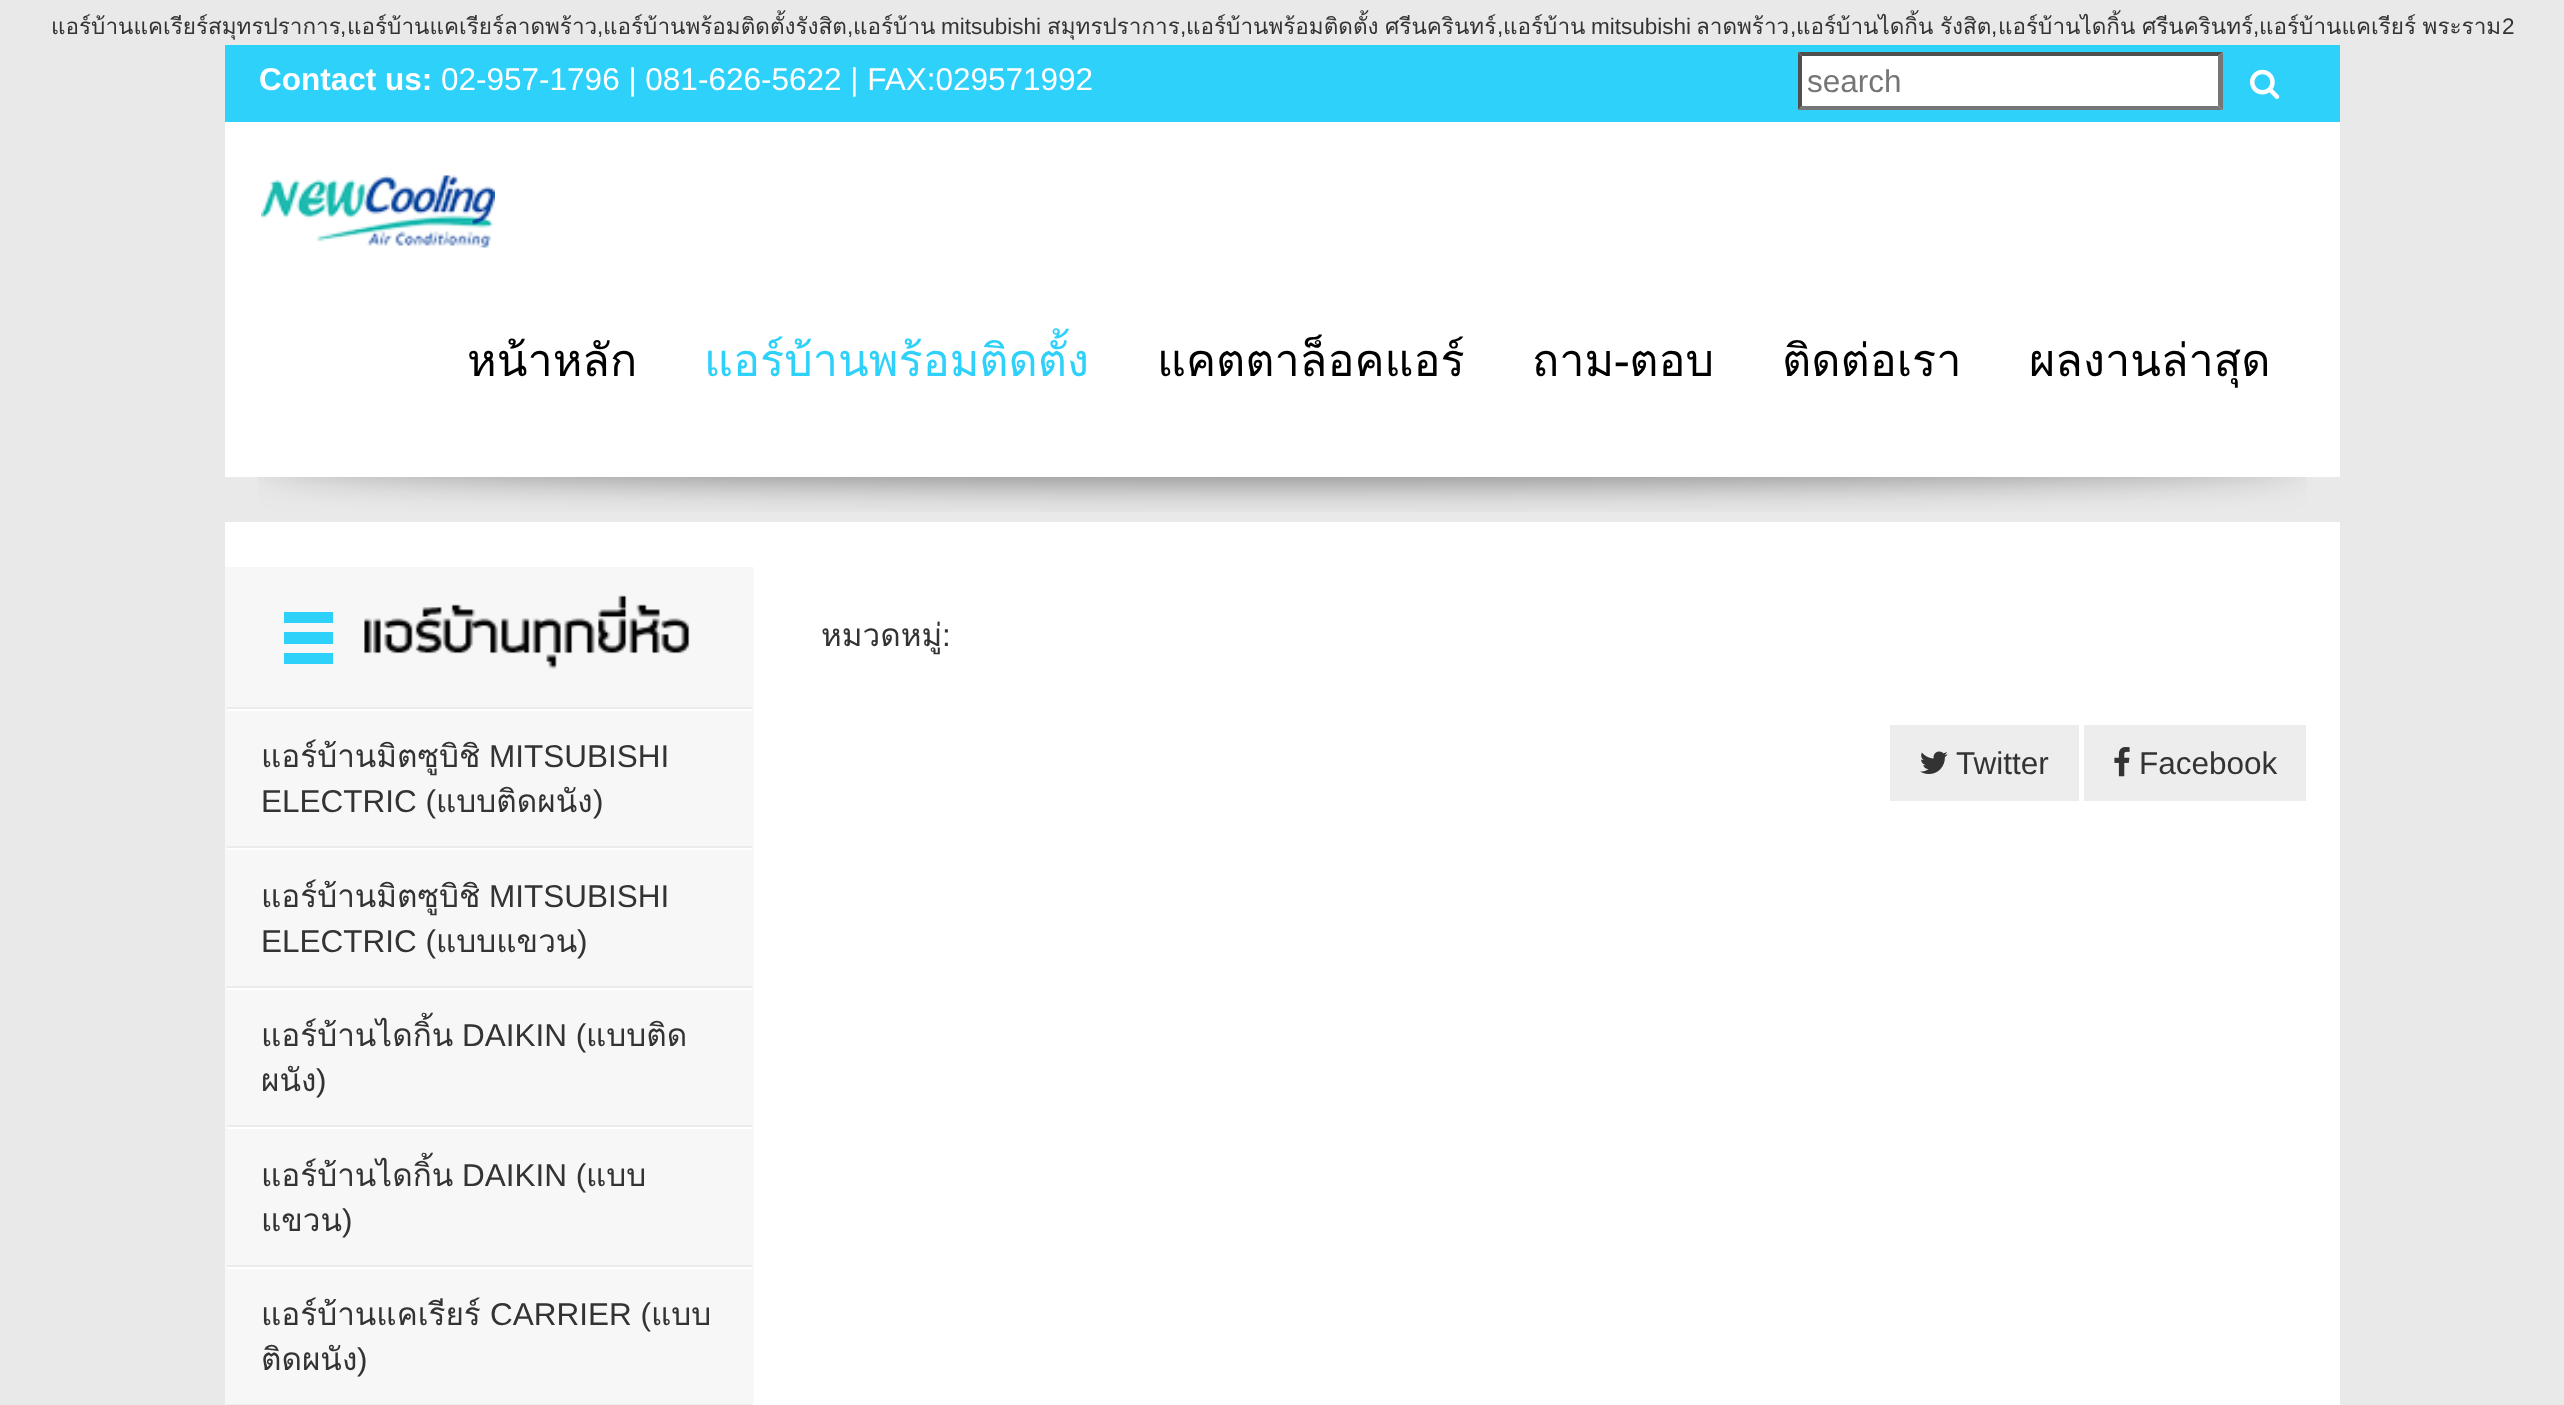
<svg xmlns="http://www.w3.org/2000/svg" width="2564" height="1405">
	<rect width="100%" height="100%" fill="#E9E9E9" />
	<text x="51" y="34" font-family="Loma" font-size="22.5" fill="#333333">แอร์บ้านแคเรียร์สมุทรปราการ</text>
	<text x="340" y="34" font-family="Liberation Sans" font-size="22.5" fill="#333333">,</text>
	<text x="347" y="34" font-family="Loma" font-size="22.5" fill="#333333">แอร์บ้านแคเรียร์ลาดพร้าว</text>
	<text x="597" y="34" font-family="Liberation Sans" font-size="22.5" fill="#333333">,</text>
	<text x="603" y="34" font-family="Loma" font-size="22.5" fill="#333333">แอร์บ้านพร้อมติดตั้งรังสิต</text>
	<text x="847" y="34" font-family="Liberation Sans" font-size="22.5" fill="#333333">,</text>
	<text x="853" y="34" font-family="Loma" font-size="22.5" fill="#333333">แอร์บ้าน</text>
	<text x="941" y="34" font-family="Liberation Sans" font-size="22.5" fill="#333333">mitsubishi</text>
	<text x="1047" y="34" font-family="Loma" font-size="22.5" fill="#333333">สมุทรปราการ</text>
	<text x="1180" y="34" font-family="Liberation Sans" font-size="22.5" fill="#333333">,</text>
	<text x="1186" y="34" word-spacing="-1" font-family="Loma" font-size="22.5" fill="#333333">แอร์บ้านพร้อมติดตั้ง ศรีนครินทร์</text>
	<text x="1497" y="34" font-family="Liberation Sans" font-size="22.5" fill="#333333">,</text>
	<text x="1503" y="34" font-family="Loma" font-size="22.5" fill="#333333">แอร์บ้าน</text>
	<text x="1591" y="34" font-family="Liberation Sans" font-size="22.5" fill="#333333">mitsubishi</text>
	<text x="1696" y="34" font-family="Loma" font-size="22.5" fill="#333333">ลาดพร้าว</text>
	<text x="1790" y="34" font-family="Liberation Sans" font-size="22.5" fill="#333333">,</text>
	<text x="1796" y="34" word-spacing="-1" font-family="Loma" font-size="22.5" fill="#333333">แอร์บ้านไดกิ้น รังสิต</text>
	<text x="1991" y="34" font-family="Liberation Sans" font-size="22.5" fill="#333333">,</text>
	<text x="1998" y="34" word-spacing="-1" font-family="Loma" font-size="22.5" fill="#333333">แอร์บ้านไดกิ้น ศรีนครินทร์</text>
	<text x="2253" y="34" font-family="Liberation Sans" font-size="22.5" fill="#333333">,</text>
	<text x="2259" y="34" word-spacing="-1" font-family="Loma" font-size="22.5" fill="#333333">แอร์บ้านแคเรียร์ พระราม</text>
	<text x="2502" y="34" font-family="Liberation Sans" font-size="22.5" fill="#333333">2</text>
	<rect x="225" y="45" width="2115" height="77" fill="#2DD1FA" />
	<text x="259" y="90" font-family="Liberation Sans" font-size="31.5" font-weight="700" fill="#FFFFFF">Contact us:</text>
	<text x="441" y="90" font-family="Liberation Sans" font-size="31.5" fill="#FFFFFF">02-957-1796 | 081-626-5622 | FAX:029571992</text>
	<rect x="1798" y="52" width="425" height="58" fill="#FFFFFF" />
	<path d="M1798 52H2223L2218 56H1802Z" fill="#4F4F4F" />
	<path d="M2223 52V110L2218 106V56Z" fill="#767676" />
	<path d="M2223 110H1798L1802 106H2218Z" fill="#767676" />
	<path d="M1798 110V52L1802 56V106Z" fill="#4F4F4F" />
	<text x="1807" y="92" font-family="Liberation Sans" font-size="31.5" fill="#757575">search</text>
	<image x="2250" y="69" width="30" height="30" href="assets/img1.png" />
	<rect x="225" y="122" width="2115" height="355" fill="#FFFFFF" />
	<image x="261" y="175" width="234" height="73" href="assets/img2.png" />
	<text x="467" y="376" font-family="Loma" font-size="45" fill="#000000">หน้าหลัก</text>
	<text x="704" y="376" font-family="Loma" font-size="45" fill="#2DD1FA">แอร์บ้านพร้อมติดตั้ง</text>
	<g font-family="Loma" font-size="45" fill="#000000">
		<text x="1157" y="376">แคตตาล็อคแอร์</text>
		<text x="1532" y="376">ถาม-ตอบ</text>
		<text x="1782" y="376">ติดต่อเรา</text>
		<text x="2029" y="376">ผลงานล่าสุด</text>
	</g>
	<image x="258" y="477" width="2049" height="35" href="assets/img3.png" />
	<rect x="225" y="522" width="2115" height="45" fill="#FFFFFF" />
	<rect x="225" y="567" width="529" height="838" fill="#F7F7F7" />
	<rect x="754" y="567" width="1586" height="838" fill="#FFFFFF" />
	<text x="821" y="646" font-family="Loma" font-size="31.5" fill="#333333">หมวดหมู่</text>
	<text x="942" y="646" font-family="Liberation Sans" font-size="31.5" fill="#333333">:</text>
	<rect x="1890" y="725" width="189" height="76" fill="#EDEDED" />
	<image x="1920" y="751" width="28" height="23" href="assets/img4.png" />
	<text x="1956" y="774" font-family="Liberation Sans" font-size="31.5" fill="#333333">Twitter</text>
	<rect x="2084" y="725" width="222" height="76" fill="#EDEDED" />
	<image x="2114" y="747" width="16" height="30" href="assets/img5.png" />
	<text x="2139" y="774" font-family="Liberation Sans" font-size="31.5" fill="#333333">Facebook</text>
	<rect x="227" y="707" width="525" height="2" fill="#EBEBEB" />
	<rect x="284" y="612" width="49" height="11" fill="#2DD1FA" />
	<rect x="284" y="632" width="49" height="12" fill="#2DD1FA" />
	<rect x="284" y="653" width="49" height="11" fill="#2DD1FA" />
	<image x="364" y="595" width="326" height="74" href="assets/img6.png" />
	<rect x="227" y="709" width="525" height="2" fill="#FFFFFF" />
	<rect x="227" y="846" width="525" height="2" fill="#EBEBEB" />
	<text x="261" y="767" font-family="Loma" font-size="31.5" fill="#333333">แอร์บ้านมิตซูบิชิ</text>
	<g font-family="Liberation Sans" font-size="31.5" fill="#333333">
		<text x="489" y="767">MITSUBISHI</text>
		<text x="261" y="812">ELECTRIC (</text>
	</g>
	<text x="436" y="812" font-family="Loma" font-size="31.5" fill="#333333">แบบติดผนัง</text>
	<text x="593" y="812" font-family="Liberation Sans" font-size="31.5" fill="#333333">)</text>
	<rect x="227" y="848" width="525" height="2" fill="#FFFFFF" />
	<rect x="227" y="986" width="525" height="2" fill="#EBEBEB" />
	<text x="261" y="907" font-family="Loma" font-size="31.5" fill="#333333">แอร์บ้านมิตซูบิชิ</text>
	<g font-family="Liberation Sans" font-size="31.5" fill="#333333">
		<text x="489" y="907">MITSUBISHI</text>
		<text x="261" y="952">ELECTRIC (</text>
	</g>
	<text x="436" y="952" font-family="Loma" font-size="31.5" fill="#333333">แบบแขวน</text>
	<text x="577" y="952" font-family="Liberation Sans" font-size="31.5" fill="#333333">)</text>
	<rect x="227" y="988" width="525" height="2" fill="#FFFFFF" />
	<rect x="227" y="1125" width="525" height="2" fill="#EBEBEB" />
	<text x="261" y="1046" font-family="Loma" font-size="31.5" fill="#333333">แอร์บ้านไดกิ้น</text>
	<text x="462" y="1046" font-family="Liberation Sans" font-size="31.5" fill="#333333">DAIKIN (</text>
	<g font-family="Loma" font-size="31.5" fill="#333333">
		<text x="586" y="1046">แบบติด</text>
		<text x="261" y="1091">ผนัง</text>
	</g>
	<text x="316" y="1091" font-family="Liberation Sans" font-size="31.5" fill="#333333">)</text>
	<rect x="227" y="1127" width="525" height="2" fill="#FFFFFF" />
	<rect x="227" y="1265" width="525" height="2" fill="#EBEBEB" />
	<text x="261" y="1186" font-family="Loma" font-size="31.5" fill="#333333">แอร์บ้านไดกิ้น</text>
	<text x="462" y="1186" font-family="Liberation Sans" font-size="31.5" fill="#333333">DAIKIN (</text>
	<g font-family="Loma" font-size="31.5" fill="#333333">
		<text x="586" y="1186">แบบ</text>
		<text x="261" y="1231">แขวน</text>
	</g>
	<text x="342" y="1231" font-family="Liberation Sans" font-size="31.5" fill="#333333">)</text>
	<rect x="227" y="1267" width="525" height="2" fill="#FFFFFF" />
	<rect x="227" y="1404" width="525" height="1" fill="#EBEBEB" />
	<text x="261" y="1325" font-family="Loma" font-size="31.5" fill="#333333">แอร์บ้านแคเรียร์</text>
	<text x="490" y="1325" font-family="Liberation Sans" font-size="31.5" fill="#333333">CARRIER (</text>
	<g font-family="Loma" font-size="31.5" fill="#333333">
		<text x="651" y="1325">แบบ</text>
		<text x="261" y="1370">ติดผนัง</text>
	</g>
	<text x="357" y="1370" font-family="Liberation Sans" font-size="31.5" fill="#333333">)</text>
</svg>
